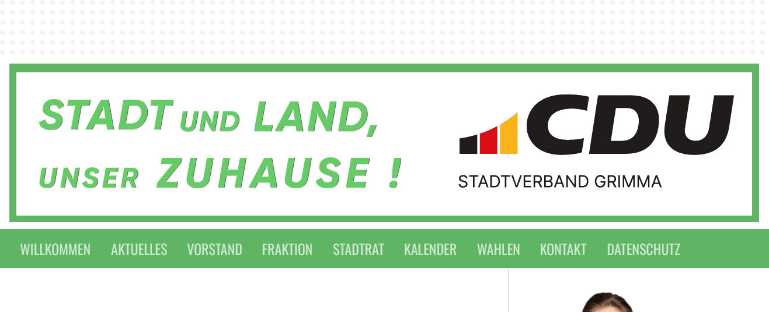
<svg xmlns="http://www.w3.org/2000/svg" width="769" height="312">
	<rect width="100%" height="100%" fill="#FFFFFF" />
	<image x="0" y="0" width="769" height="229" href="assets/img1.png" />
	<image x="0" y="60" width="765" height="165" href="assets/img2.png" />
	<rect x="0" y="229" width="769" height="39" fill="#60B565" />
	<g font-family="Oswald" font-size="14" fill="#CFE9D1">
		<text x="20" y="255">WILLKOMMEN</text>
		<text x="111" y="255">AKTUELLES</text>
		<text x="187" y="255">VORSTAND</text>
		<text x="262" y="255">FRAKTION</text>
		<text x="333" y="255">STADTRAT</text>
		<text x="404" y="255">KALENDER</text>
		<text x="477" y="255">WAHLEN</text>
		<text x="540" y="255">KONTAKT</text>
		<text x="607" y="255">DATENSCHUTZ</text>
	</g>
	<rect x="508" y="268" width="1" height="44" fill="#E0E0E0" />
	<image x="581" y="292" width="53" height="20" href="assets/img3.png" />
</svg>
